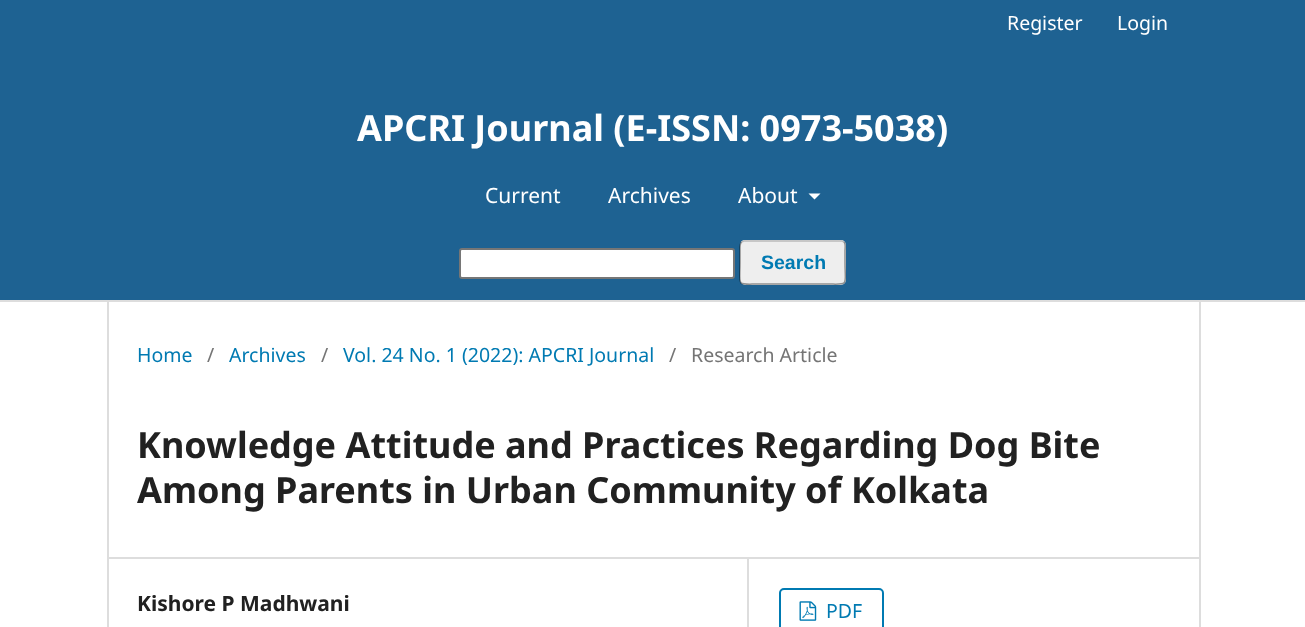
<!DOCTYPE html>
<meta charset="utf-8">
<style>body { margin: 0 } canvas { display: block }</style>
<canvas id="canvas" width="1305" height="627"></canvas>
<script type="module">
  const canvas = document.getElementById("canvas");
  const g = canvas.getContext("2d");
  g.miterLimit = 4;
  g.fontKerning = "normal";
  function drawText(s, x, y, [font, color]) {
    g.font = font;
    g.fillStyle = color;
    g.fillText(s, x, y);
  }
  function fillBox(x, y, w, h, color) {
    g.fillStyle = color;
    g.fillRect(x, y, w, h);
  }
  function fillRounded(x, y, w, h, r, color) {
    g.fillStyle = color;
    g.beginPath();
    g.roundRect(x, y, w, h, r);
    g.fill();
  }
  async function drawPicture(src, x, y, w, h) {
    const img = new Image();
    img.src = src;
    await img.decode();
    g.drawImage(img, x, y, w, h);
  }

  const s1 = ["19.5px Noto Sans", "#FFFFFF"];
  const s2 = ["bold 36px Noto Sans", "#FFFFFF"];
  const s3 = ["21px Noto Sans", "#FFFFFF"];
  const s4 = ["bold 19.5px Liberation Sans", "#007AB2"];
  const s5 = ["19.5px Noto Sans", "#007AB2"];
  const s6 = ["19.5px Noto Sans", "#757575"];
  const s7 = ["bold 36px Noto Sans", "#212121"];
  const s8 = ["bold 21px Noto Sans", "#212121"];

  fillBox(0, 0, 1305, 627, "#FFFFFF");
  fillBox(0, 0, 1305, 300, "#1E6292");
  fillBox(0, 300, 1305, 2, "#DDDDDD");
  drawText("Register", 1007, 30, s1);
  drawText("Login", 1117, 30, s1);
  drawText("APCRI Journal (E-ISSN: 0973-5038)", 357, 141, s2);
  drawText("Current", 485, 203, s3);
  drawText("Archives", 608, 203, s3);
  drawText("About", 738, 203, s3);
  g.beginPath();
  g.moveTo(808.5, 193.5);
  g.lineTo(820.5, 193.5);
  g.lineTo(814.5, 199.5);
  g.closePath();
  g.fill();
  g.beginPath();
  g.roundRect(460, 249, 274, 29, 2);
  g.fill();
  g.strokeStyle = "#767676";
  g.lineWidth = 2;
  g.stroke();
  fillRounded(740, 240, 106, 45, 5, "#EEEEEE");
  g.beginPath();
  g.moveTo(741.5, 242);
  g.lineTo(744, 241);
  g.lineTo(842, 241);
  g.lineTo(844, 242);
  g.strokeStyle = "#BBBBBB";
  g.lineWidth = 1.5;
  g.stroke();
  g.beginPath();
  g.moveTo(844, 242);
  g.bezierCurveTo(846, 244, 845, 248.5, 845, 250.5);
  g.lineTo(845, 262.5);
  g.bezierCurveTo(845, 287.5, 850, 284, 825, 284);
  g.lineTo(760, 284);
  g.bezierCurveTo(735.5, 284, 740, 287.5, 740, 262.5);
  g.lineTo(740, 250.5);
  g.bezierCurveTo(740, 248.5, 739.5, 244, 741.5, 242);
  g.strokeStyle = "rgba(0, 0, 0, 0.4)";
  g.stroke();
  drawText("Search", 761, 269, s4);
  fillBox(107, 557, 1092, 2, "#DDDDDD");
  fillBox(107, 302, 2, 325, "#DDDDDD");
  drawText("Home", 137, 362, s5);
  drawText("/", 207, 362, s6);
  drawText("Archives", 229, 362, s5);
  drawText("/", 321, 362, s6);
  drawText("Vol. 24 No. 1 (2022): APCRI Journal", 343, 362, s5);
  drawText("/", 669, 362, s6);
  drawText("Research Article", 691, 362, s6);
  drawText("Knowledge Attitude and Practices Regarding Dog Bite", 137, 458, s7);
  drawText("Among Parents in Urban Community of Kolkata", 137, 503, s7);
  fillBox(747, 558, 2, 69, "#DDDDDD");
  drawText("Kishore P Madhwani", 137, 611, s8);
  g.beginPath();
  g.roundRect(780, 589, 103, 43, 4);
  g.strokeStyle = "#007AB2";
  g.lineWidth = 2;
  g.stroke();
  await drawPicture("pic1.png", 799, 601, 18, 20);
  drawText("PDF", 826, 618, s5);
  fillBox(1199, 302, 2, 325, "#DDDDDD");
</script>
